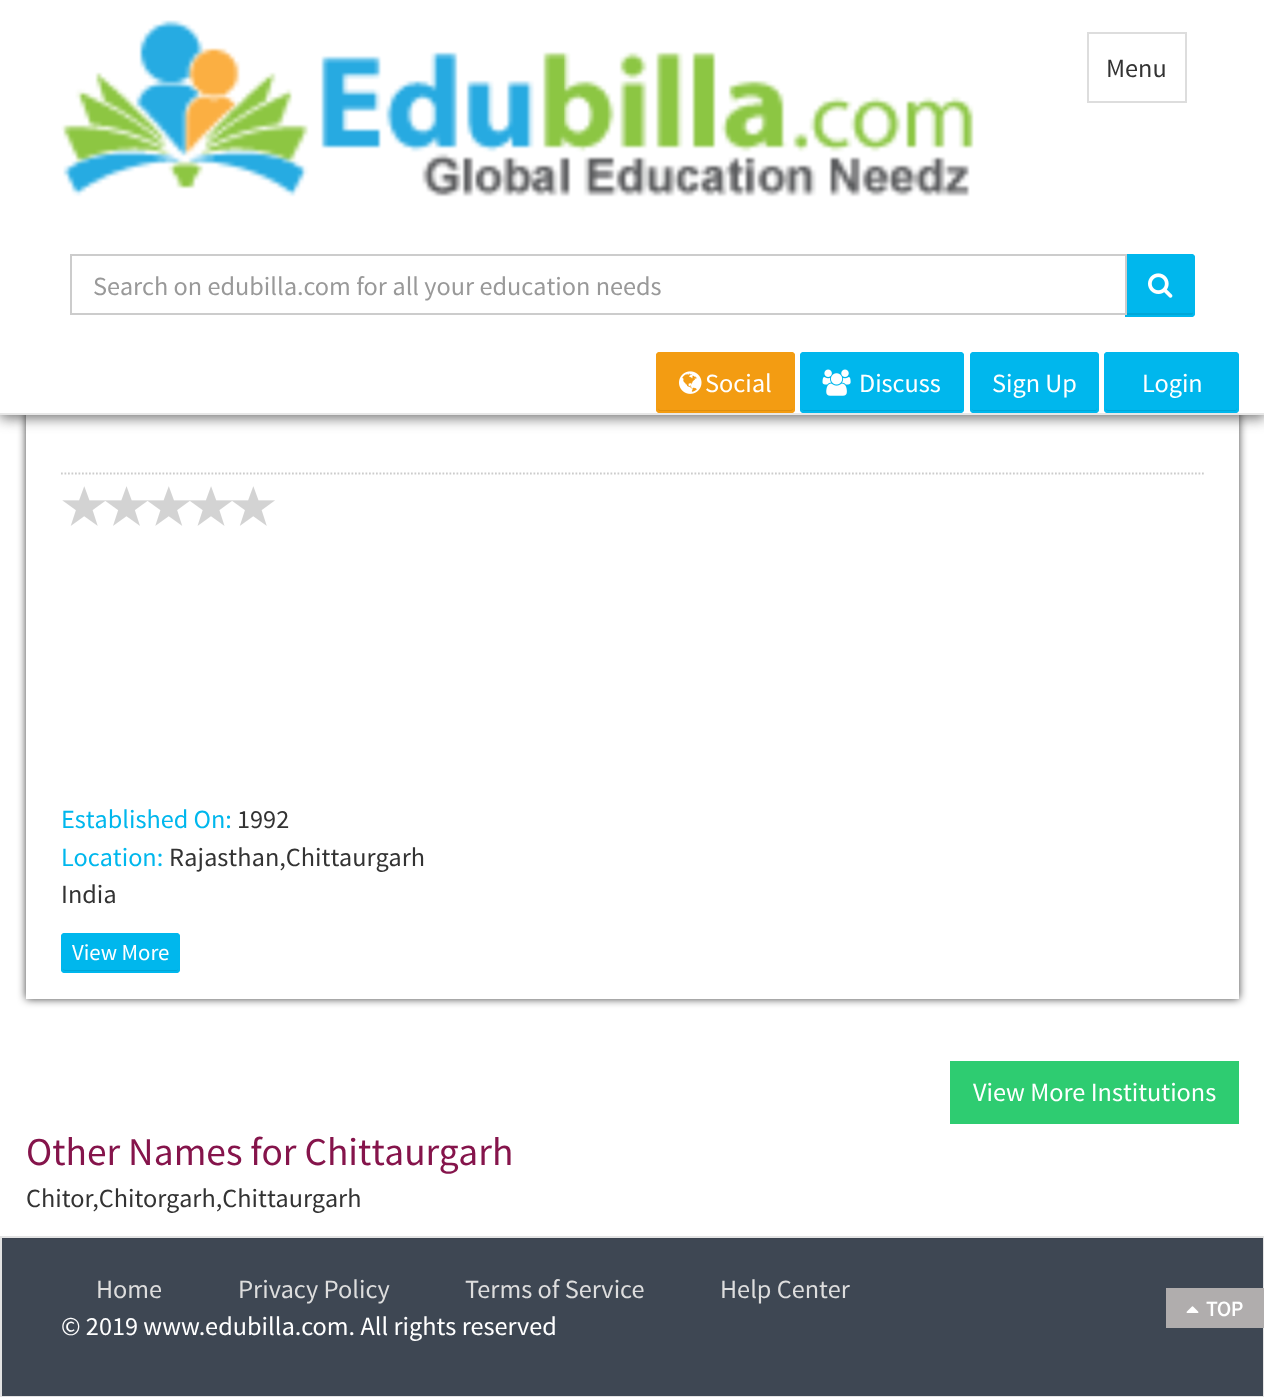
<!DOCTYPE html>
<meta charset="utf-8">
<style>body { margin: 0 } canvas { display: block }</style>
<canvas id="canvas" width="1264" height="1397"></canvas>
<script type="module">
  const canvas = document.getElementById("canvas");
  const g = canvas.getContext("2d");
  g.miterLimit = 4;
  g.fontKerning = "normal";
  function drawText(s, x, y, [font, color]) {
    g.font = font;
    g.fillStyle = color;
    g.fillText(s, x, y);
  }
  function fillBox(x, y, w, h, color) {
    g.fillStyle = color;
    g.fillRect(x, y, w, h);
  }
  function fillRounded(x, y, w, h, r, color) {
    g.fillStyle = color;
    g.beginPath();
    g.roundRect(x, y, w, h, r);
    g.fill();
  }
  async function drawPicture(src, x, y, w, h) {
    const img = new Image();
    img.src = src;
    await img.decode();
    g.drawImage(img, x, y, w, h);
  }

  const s1 = ["26.25px Source Sans Pro", "#333333"];
  const s2 = ["26.25px Source Sans Pro", "#999999"];
  const s3 = ["26.25px Source Sans Pro", "#FFFFFF"];
  const s4 = ["26.25px Source Sans Pro", "#00B7ED"];
  const s5 = ["22.75px Source Sans Pro", "#FFFFFF"];
  const s6 = ["39.4px Source Sans Pro", "#85144B"];
  const s7 = ["26.25px Source Sans Pro", "#DDDDDD"];
  const s8 = ["bold 21px Source Sans Pro", "#FFFFFF"];

  fillBox(0, 0, 1264, 1397, "#FFFFFF");
  g.fillStyle = "rgba(0, 0, 0, 0.75)";
  g.filter = "blur(4.5px)";
  g.beginPath();
  g.rect(26, 341, 1213, 658);
  g.fill();
  g.filter = "none";
  fillBox(26, 415, 1213, 584, "#FFFFFF");
  g.fillStyle = "rgba(50, 50, 50, 0.7)";
  g.filter = "blur(7px)";
  g.beginPath();
  g.rect(0, 4, 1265, 414);
  g.fill();
  g.filter = "none";
  fillBox(0, 0, 1264, 413, "#FFFFFF");
  fillBox(0, 413, 1264, 2, "#E7E7E7");
  await drawPicture("pic1.png", 61, 20, 913, 177);
  g.strokeStyle = "#DDDDDD";
  g.lineWidth = 2;
  g.strokeRect(1088, 33, 98, 69);
  drawText("Menu", 1106, 77, s1);
  g.fillStyle = "#00B7ED";
  g.beginPath();
  g.roundRect(1125, 254, 70, 63, [0, 4, 4, 0]);
  g.fill();
  g.fillStyle = "#00A7D8";
  g.beginPath();
  g.moveTo(1127, 313);
  g.lineTo(1127, 315);
  g.lineTo(1192, 315);
  g.bezierCurveTo(1193, 315, 1194, 314, 1194, 313);
  g.lineTo(1194, 312);
  g.lineTo(1192, 313);
  g.closePath();
  g.fill();
  g.beginPath();
  g.roundRect(1126, 255, 68, 61, [0, 3, 3, 0]);
  g.strokeStyle = "#00B7ED";
  g.stroke();
  g.strokeStyle = "#CCCCCC";
  g.strokeRect(71, 255, 1055, 59);
  drawText("Search on edubilla.com for all your education needs", 93, 295, s2);
  await drawPicture("pic2.png", 1148, 273, 25, 25);
  fillRounded(656, 352, 139, 61, 4, "#F39C12");
  g.fillStyle = "#DD8E10";
  g.beginPath();
  g.moveTo(658, 408);
  g.bezierCurveTo(658, 409, 658, 411, 660, 411);
  g.lineTo(791, 411);
  g.bezierCurveTo(793, 411, 793, 409, 793, 408);
  g.bezierCurveTo(793, 409, 792, 410, 791, 410);
  g.lineTo(660, 410);
  g.bezierCurveTo(659, 410, 658, 409, 658, 408);
  g.closePath();
  g.fill();
  g.beginPath();
  g.roundRect(657, 353, 137, 59, 3);
  g.strokeStyle = "#F39C12";
  g.stroke();
  await drawPicture("pic3.png", 679, 371, 23, 23);
  drawText("Social", 705, 392, s3);
  fillRounded(800, 352, 164, 61, 4, "#00B7ED");
  g.fillStyle = "#00A7D8";
  g.beginPath();
  g.moveTo(802, 408);
  g.lineTo(802, 409);
  g.bezierCurveTo(802, 410, 803, 411, 804, 411);
  g.lineTo(961, 411);
  g.bezierCurveTo(962, 411, 963, 410, 963, 409);
  g.lineTo(963, 356);
  g.bezierCurveTo(963, 355, 963, 355, 962, 354);
  g.lineTo(962, 408);
  g.bezierCurveTo(962, 409, 962, 410, 961, 410);
  g.lineTo(803, 410);
  g.bezierCurveTo(802, 410, 802, 409, 802, 408);
  g.closePath();
  g.fill();
  g.beginPath();
  g.roundRect(801, 353, 162, 59, 3);
  g.strokeStyle = "#00B7ED";
  g.stroke();
  await drawPicture("pic4.png", 822, 369, 29, 27);
  drawText("Discuss", 859, 392, s3);
  fillRounded(970, 352, 129, 61, 4, "#00B7ED");
  g.fillStyle = "#00A7D8";
  g.beginPath();
  g.moveTo(971, 408);
  g.lineTo(972, 410);
  g.lineTo(973, 411);
  g.lineTo(1096, 411);
  g.bezierCurveTo(1097, 410, 1097, 409, 1097, 408);
  g.lineTo(1096, 410);
  g.lineTo(973, 410);
  g.lineTo(971, 409);
  g.closePath();
  g.fill();
  g.beginPath();
  g.roundRect(971, 353, 127, 59, 3);
  g.stroke();
  drawText("Sign Up", 992, 392, s3);
  fillRounded(1104, 352, 135, 61, 4, "#00B7ED");
  g.fillStyle = "#00A7D8";
  g.beginPath();
  g.moveTo(1106, 408);
  g.bezierCurveTo(1106, 409, 1106, 411, 1108, 411);
  g.lineTo(1235, 411);
  g.bezierCurveTo(1237, 411, 1237, 409, 1237, 408);
  g.lineTo(1236, 410);
  g.lineTo(1108, 410);
  g.bezierCurveTo(1107, 410, 1106, 409, 1106, 408);
  g.closePath();
  g.fill();
  g.beginPath();
  g.roundRect(1105, 353, 133, 59, 3);
  g.stroke();
  drawText("Login", 1142, 392, s3);
  g.beginPath();
  g.moveTo(61, 473.5);
  g.lineTo(1204, 473.5);
  g.strokeStyle = "#CCCCCC";
  g.lineWidth = 1.8;
  g.setLineDash([1.75, 1.75]);
  g.stroke();
  await drawPicture("pic5.png", 62, 486, 213, 40);
  drawText("Established On:", 61, 828, s4);
  drawText("1992", 237, 828, s1);
  drawText("Location:", 61, 866, s4);
  drawText("Rajasthan,Chittaurgarh", 169, 866, s1);
  drawText("India", 61, 903, s1);
  fillRounded(61, 933, 119, 40, 4, "#00B7ED");
  g.fillStyle = "#00A7D8";
  g.beginPath();
  g.moveTo(63, 968);
  g.lineTo(63, 969);
  g.bezierCurveTo(63, 970, 64, 971, 65, 971);
  g.lineTo(177, 971);
  g.bezierCurveTo(178, 971, 179, 970, 179, 969);
  g.lineTo(179, 937);
  g.bezierCurveTo(179, 936, 179, 936, 178, 935);
  g.lineTo(178, 968);
  g.bezierCurveTo(178, 969, 178, 970, 177, 970);
  g.lineTo(65, 970);
  g.bezierCurveTo(64, 970, 63, 969, 63, 968);
  g.closePath();
  g.fill();
  g.beginPath();
  g.roundRect(62, 934, 117, 38, 3);
  g.strokeStyle = "#00B7ED";
  g.lineWidth = 2;
  g.setLineDash([]);
  g.stroke();
  drawText("View More", 72, 960, s5);
  fillBox(950, 1061, 289, 63, "#2ECC71");
  drawText("View More Institutions", 973, 1101, s3);
  drawText("Other Names for Chittaurgarh", 26, 1165, s6);
  drawText("Chitor,Chitorgarh,Chittaurgarh", 26, 1207, s1);
  fillBox(2, 1239, 1261, 157, "#3E4753");
  fillBox(2, 1238, 1262, 1, "#3B434F");
  g.strokeStyle = "#E3E3E3";
  g.strokeRect(1, 1237, 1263, 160);
  drawText("Home", 96, 1298, s7);
  drawText("Privacy Policy", 238, 1298, s7);
  drawText("Terms of Service", 465, 1298, s7);
  drawText("Help Center", 720, 1298, s7);
  drawText("© 2019 www.edubilla.com. All rights reserved", 61, 1335, s3);
  fillBox(1166, 1288, 98, 40, "#B0ADAD");
  await drawPicture("pic6.png", 1186, 1306, 13, 7);
  drawText("TOP", 1206, 1316, s8);
</script>
